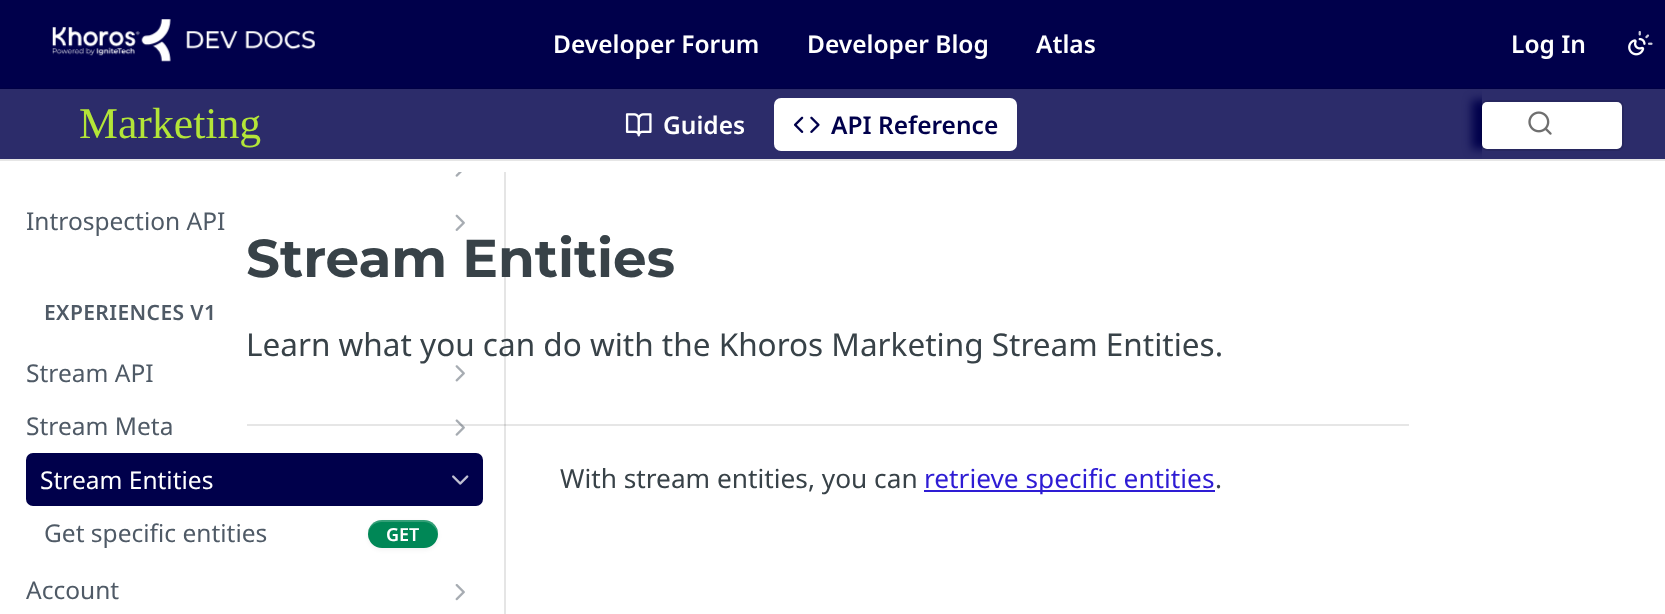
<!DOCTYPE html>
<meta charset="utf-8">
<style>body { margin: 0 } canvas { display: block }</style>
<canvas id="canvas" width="1665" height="614"></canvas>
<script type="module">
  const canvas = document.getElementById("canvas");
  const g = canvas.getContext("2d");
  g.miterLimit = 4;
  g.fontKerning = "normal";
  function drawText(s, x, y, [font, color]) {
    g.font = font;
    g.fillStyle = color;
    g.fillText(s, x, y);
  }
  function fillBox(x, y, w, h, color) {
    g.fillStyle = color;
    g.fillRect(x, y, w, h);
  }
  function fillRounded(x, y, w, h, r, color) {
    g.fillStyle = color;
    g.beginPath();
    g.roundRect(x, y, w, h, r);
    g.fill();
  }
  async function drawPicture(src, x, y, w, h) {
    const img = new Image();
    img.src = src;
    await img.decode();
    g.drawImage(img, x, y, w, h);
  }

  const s1 = ["600 24.5px Noto Sans", "#FFFFFF"];
  const s2 = ["43.75px Liberation Serif", "#B3E538"];
  const s3 = ["600 24.5px Noto Sans", "#00004B"];
  const s4 = ["24.5px Noto Sans", "#4F5A66"];
  const s5 = ["600 21px Noto Sans", "#4F5A66"];
  const s6 = ["24.5px Noto Sans", "#FFFFFF"];
  const s7 = ["600 18px Noto Sans", "#FFFFFF"];
  const s8 = ["bold 53.25px Montserrat", "#384248"];
  const s9 = ["31.5px Noto Sans", "#384248"];
  const s10 = ["26.25px Noto Sans", "#384248"];
  const s11 = ["26.25px Noto Sans", "#2E1CD4"];

  fillBox(0, 0, 1665, 614, "#FFFFFF");
  fillBox(0, 159, 1665, 2, "#E6E6E6");
  fillBox(0, 0, 1665, 88, "#00004B");
  fillBox(0, 88, 1665, 1, "#000044");
  await drawPicture("pic1.png", 52, 19, 263, 43);
  drawText("Developer Forum", 553, 53, s1);
  drawText("Developer Blog", 807, 53, s1);
  drawText("Atlas", 1036, 53, s1);
  drawText("Log In", 1511, 53, s1);
  await drawPicture("pic2.png", 1628, 31, 25, 25);
  fillBox(0, 89, 1665, 70, "#2C2C6A");
  drawText("Marketing", 79, 138, s2);
  await drawPicture("pic3.png", 625, 113, 27, 24);
  drawText("Guides", 663, 134, s1);
  fillRounded(774, 98, 243, 53, 7, "#FFFFFF");
  await drawPicture("pic4.png", 793, 116, 27, 17);
  drawText("API Reference", 831, 134, s3);
  g.save();
  g.beginPath();
  g.moveTo(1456, 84);
  g.lineTo(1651, 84);
  g.lineTo(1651, 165);
  g.lineTo(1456, 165);
  g.closePath();
  g.moveTo(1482, 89);
  g.lineTo(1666, 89);
  g.lineTo(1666, 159);
  g.lineTo(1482, 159);
  g.closePath();
  g.clip("evenodd");
  g.filter = "blur(5px)";
  g.beginPath();
  g.rect(1472, 100, 163, 49);
  g.fill();
  g.filter = "none";
  g.restore();
  g.beginPath();
  g.roundRect(1482, 101, 141, 49, 6);
  g.strokeStyle = "rgba(0, 0, 0, 0.1)";
  g.lineWidth = 2;
  g.stroke();
  fillRounded(1482, 102, 140, 47, 5, "#FFFFFF");
  await drawPicture("pic5.png", 1528, 111, 24, 24);
  fillBox(247, 424, 1162, 2, "#E6E6E6");
  g.fillStyle = "rgba(0, 0, 0, 0.1)";
  g.beginPath();
  g.moveTo(2, 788);
  g.lineTo(506, 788);
  g.lineTo(506, 172);
  g.lineTo(504, 172);
  g.lineTo(504, 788);
  g.closePath();
  g.fill();
  await drawPicture("pic6.png", 455, 172, 7, 5);
  drawText("Introspection API", 26, 230, s4);
  await drawPicture("pic7.png", 455, 214, 10, 17);
  g.letterSpacing = "0.4px";
  drawText("EXPERIENCES V1", 44, 320, s5);
  g.letterSpacing = "0px";
  drawText("Stream API", 26, 382, s4);
  await drawPicture("pic8.png", 455, 365, 10, 17);
  drawText("Stream Meta", 26, 435, s4);
  await drawPicture("pic9.png", 455, 419, 10, 17);
  fillRounded(26, 453, 457, 53, 7, "#00004B");
  drawText("Stream Entities", 40, 489, s6);
  await drawPicture("pic10.png", 452, 475, 17, 10);
  drawText("Get specific entities", 44, 542, s4);
  g.fillStyle = "rgba(0, 0, 0, 0.05)";
  g.filter = "blur(2px)";
  g.beginPath();
  g.roundRect(368, 522, 70, 28, 14);
  g.fill();
  g.filter = "none";
  fillRounded(368, 520, 70, 28, 14, "#008756");
  g.fillStyle = "rgba(255, 255, 255, 0.2)";
  g.beginPath();
  g.moveTo(382, 522);
  g.lineTo(424, 522);
  g.bezierCurveTo(431, 522, 437, 528, 438, 535);
  g.bezierCurveTo(438, 528, 434, 522, 427, 520);
  g.lineTo(379, 520);
  g.bezierCurveTo(372, 522, 368, 528, 368, 535);
  g.bezierCurveTo(369, 527, 374, 522, 382, 522);
  g.closePath();
  g.fill();
  drawText("GET", 386, 541, s7);
  drawText("Account", 26, 599, s4);
  await drawPicture("pic11.png", 455, 584, 10, 17);
  drawText("Stream Entities", 246, 277, s8);
  drawText("Learn what you can do with the Khoros Marketing Stream Entities.", 246, 356, s9);
  drawText("With stream entities, you can", 560, 488, s10);
  fillBox(924, 490, 291, 2, "#2E1CD4");
  drawText("retrieve specific entities", 924, 488, s11);
  drawText(".", 1215, 488, s10);
</script>
